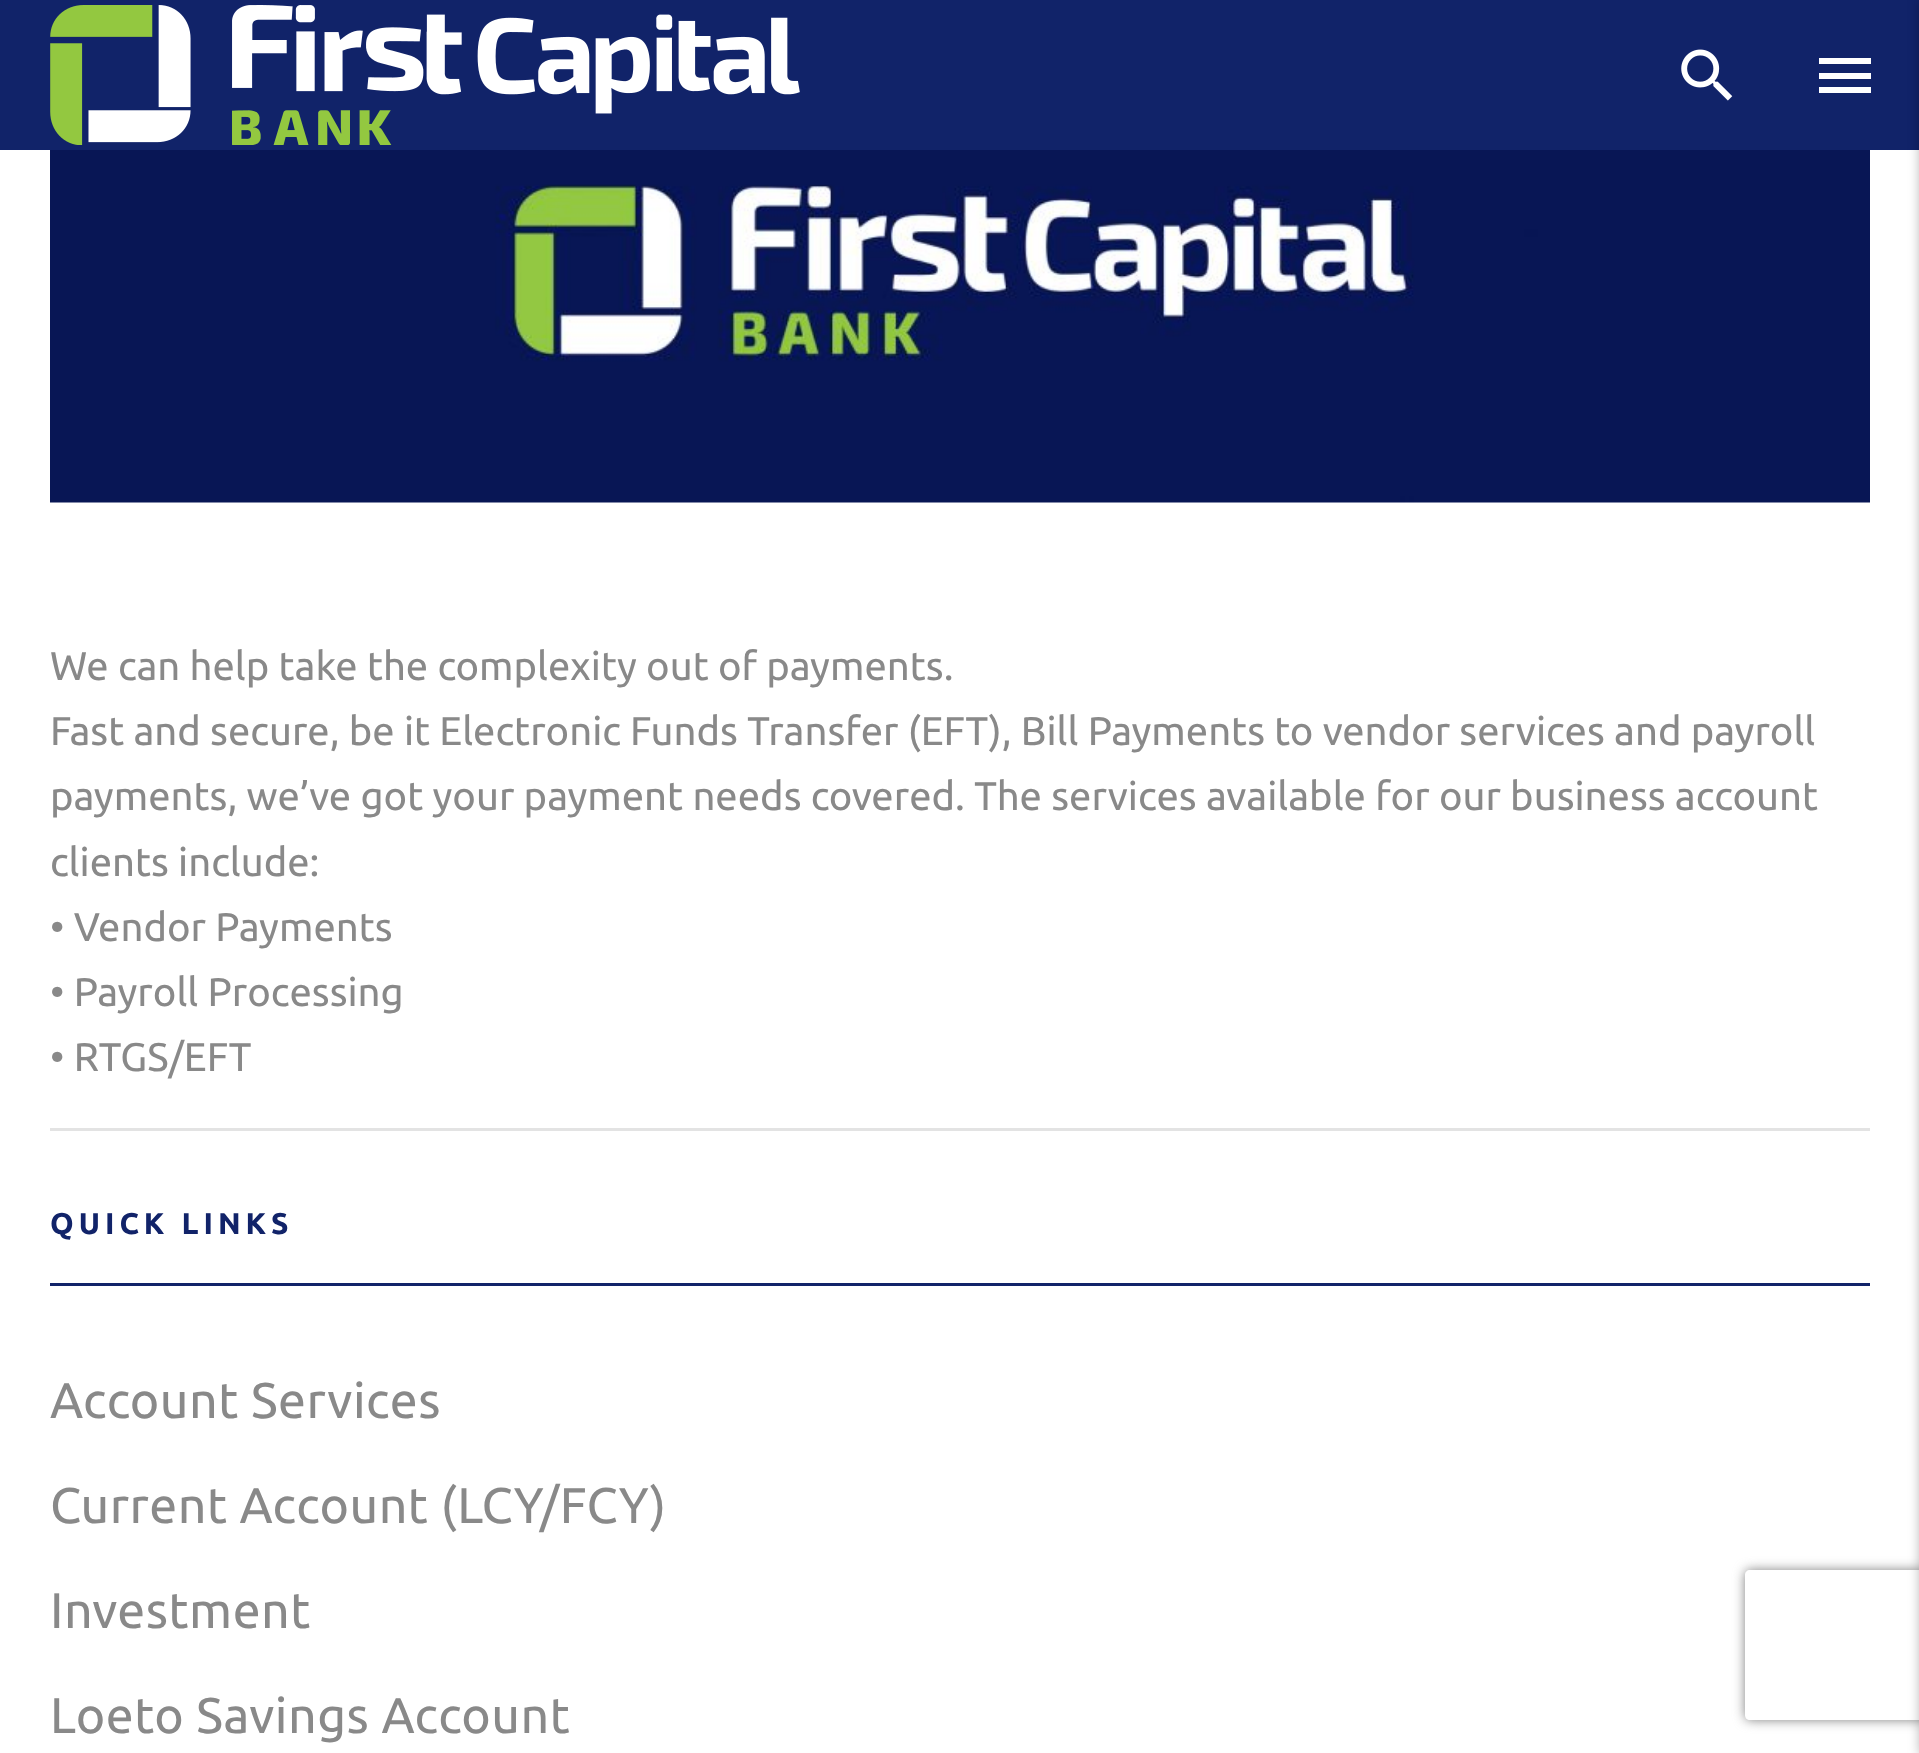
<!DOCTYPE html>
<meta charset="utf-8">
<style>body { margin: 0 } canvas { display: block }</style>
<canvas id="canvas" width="1919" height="1753"></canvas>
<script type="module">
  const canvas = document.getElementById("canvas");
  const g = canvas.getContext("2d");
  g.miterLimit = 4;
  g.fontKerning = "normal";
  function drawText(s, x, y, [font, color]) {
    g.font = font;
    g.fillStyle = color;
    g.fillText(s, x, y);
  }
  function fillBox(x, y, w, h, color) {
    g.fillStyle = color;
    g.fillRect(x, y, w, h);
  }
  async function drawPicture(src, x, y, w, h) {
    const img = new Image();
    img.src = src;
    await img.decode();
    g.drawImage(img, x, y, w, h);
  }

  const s1 = ["40px Ubuntu", "#898989"];
  const s2 = ["bold 30px Ubuntu", "#112369"];
  const s3 = ["50px Ubuntu", "#898989"];

  fillBox(0, 0, 1919, 1753, "#FFFFFF");
  fillBox(0, 0, 1919, 150, "#112369");
  await drawPicture("pic1.png", 50, 5, 750, 140);
  await drawPicture("pic2.png", 1681, 49, 52, 52);
  g.fillStyle = "#FFFFFF";
  g.beginPath();
  g.moveTo(1819, 58);
  g.lineTo(1871, 58);
  g.lineTo(1871, 64);
  g.lineTo(1819, 64);
  g.closePath();
  g.moveTo(1819, 79);
  g.lineTo(1819, 73);
  g.lineTo(1871, 73);
  g.lineTo(1871, 79);
  g.closePath();
  g.moveTo(1819, 93);
  g.lineTo(1819, 87);
  g.lineTo(1871, 87);
  g.lineTo(1871, 93);
  g.closePath();
  g.fill();
  await drawPicture("pic3.png", 50, 150, 1820, 353);
  drawText("We can help take the complexity out of payments.", 50, 680, s1);
  drawText("Fast and secure, be it Electronic Funds Transfer (EFT), Bill Payments to vendor services and payroll", 50, 745, s1);
  drawText("payments, we’ve got your payment needs covered. The services available for our business account", 50, 810, s1);
  drawText("clients include:", 50, 876, s1);
  drawText("• Vendor Payments", 50, 941, s1);
  drawText("• Payroll Processing", 50, 1006, s1);
  drawText("• RTGS/EFT", 50, 1071, s1);
  fillBox(50, 1128, 1820, 3, "#E3E3E3");
  fillBox(50, 1283, 1820, 3, "#112369");
  g.letterSpacing = "5px";
  drawText("QUICK LINKS", 50, 1234, s2);
  g.letterSpacing = "0.5px";
  drawText("Account Services", 50, 1418, s3);
  drawText("Current Account (LCY/FCY)", 50, 1523, s3);
  drawText("Investment", 50, 1628, s3);
  drawText("Loeto Savings Account", 50, 1733, s3);
  g.fillStyle = "rgba(0, 0, 0, 0.3)";
  g.filter = "blur(6px)";
  g.beginPath();
  g.rect(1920, 0, 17, 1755);
  g.fill();
  g.filter = "none";
  g.save();
  g.beginPath();
  g.moveTo(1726, 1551);
  g.lineTo(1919, 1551);
  g.lineTo(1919, 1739);
  g.lineTo(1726, 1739);
  g.closePath();
  g.moveTo(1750, 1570);
  g.lineTo(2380, 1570);
  g.bezierCurveTo(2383, 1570, 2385, 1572, 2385, 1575);
  g.lineTo(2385, 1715);
  g.bezierCurveTo(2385, 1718, 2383, 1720, 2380, 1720);
  g.lineTo(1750, 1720);
  g.bezierCurveTo(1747, 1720, 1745, 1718, 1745, 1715);
  g.lineTo(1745, 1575);
  g.bezierCurveTo(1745, 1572, 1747, 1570, 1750, 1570);
  g.closePath();
  g.clip("evenodd");
  g.fillStyle = "#808080";
  g.filter = "blur(6px)";
  g.beginPath();
  g.roundRect(1745, 1570, 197, 150, 5);
  g.fill();
  g.filter = "none";
  g.restore();
</script>
